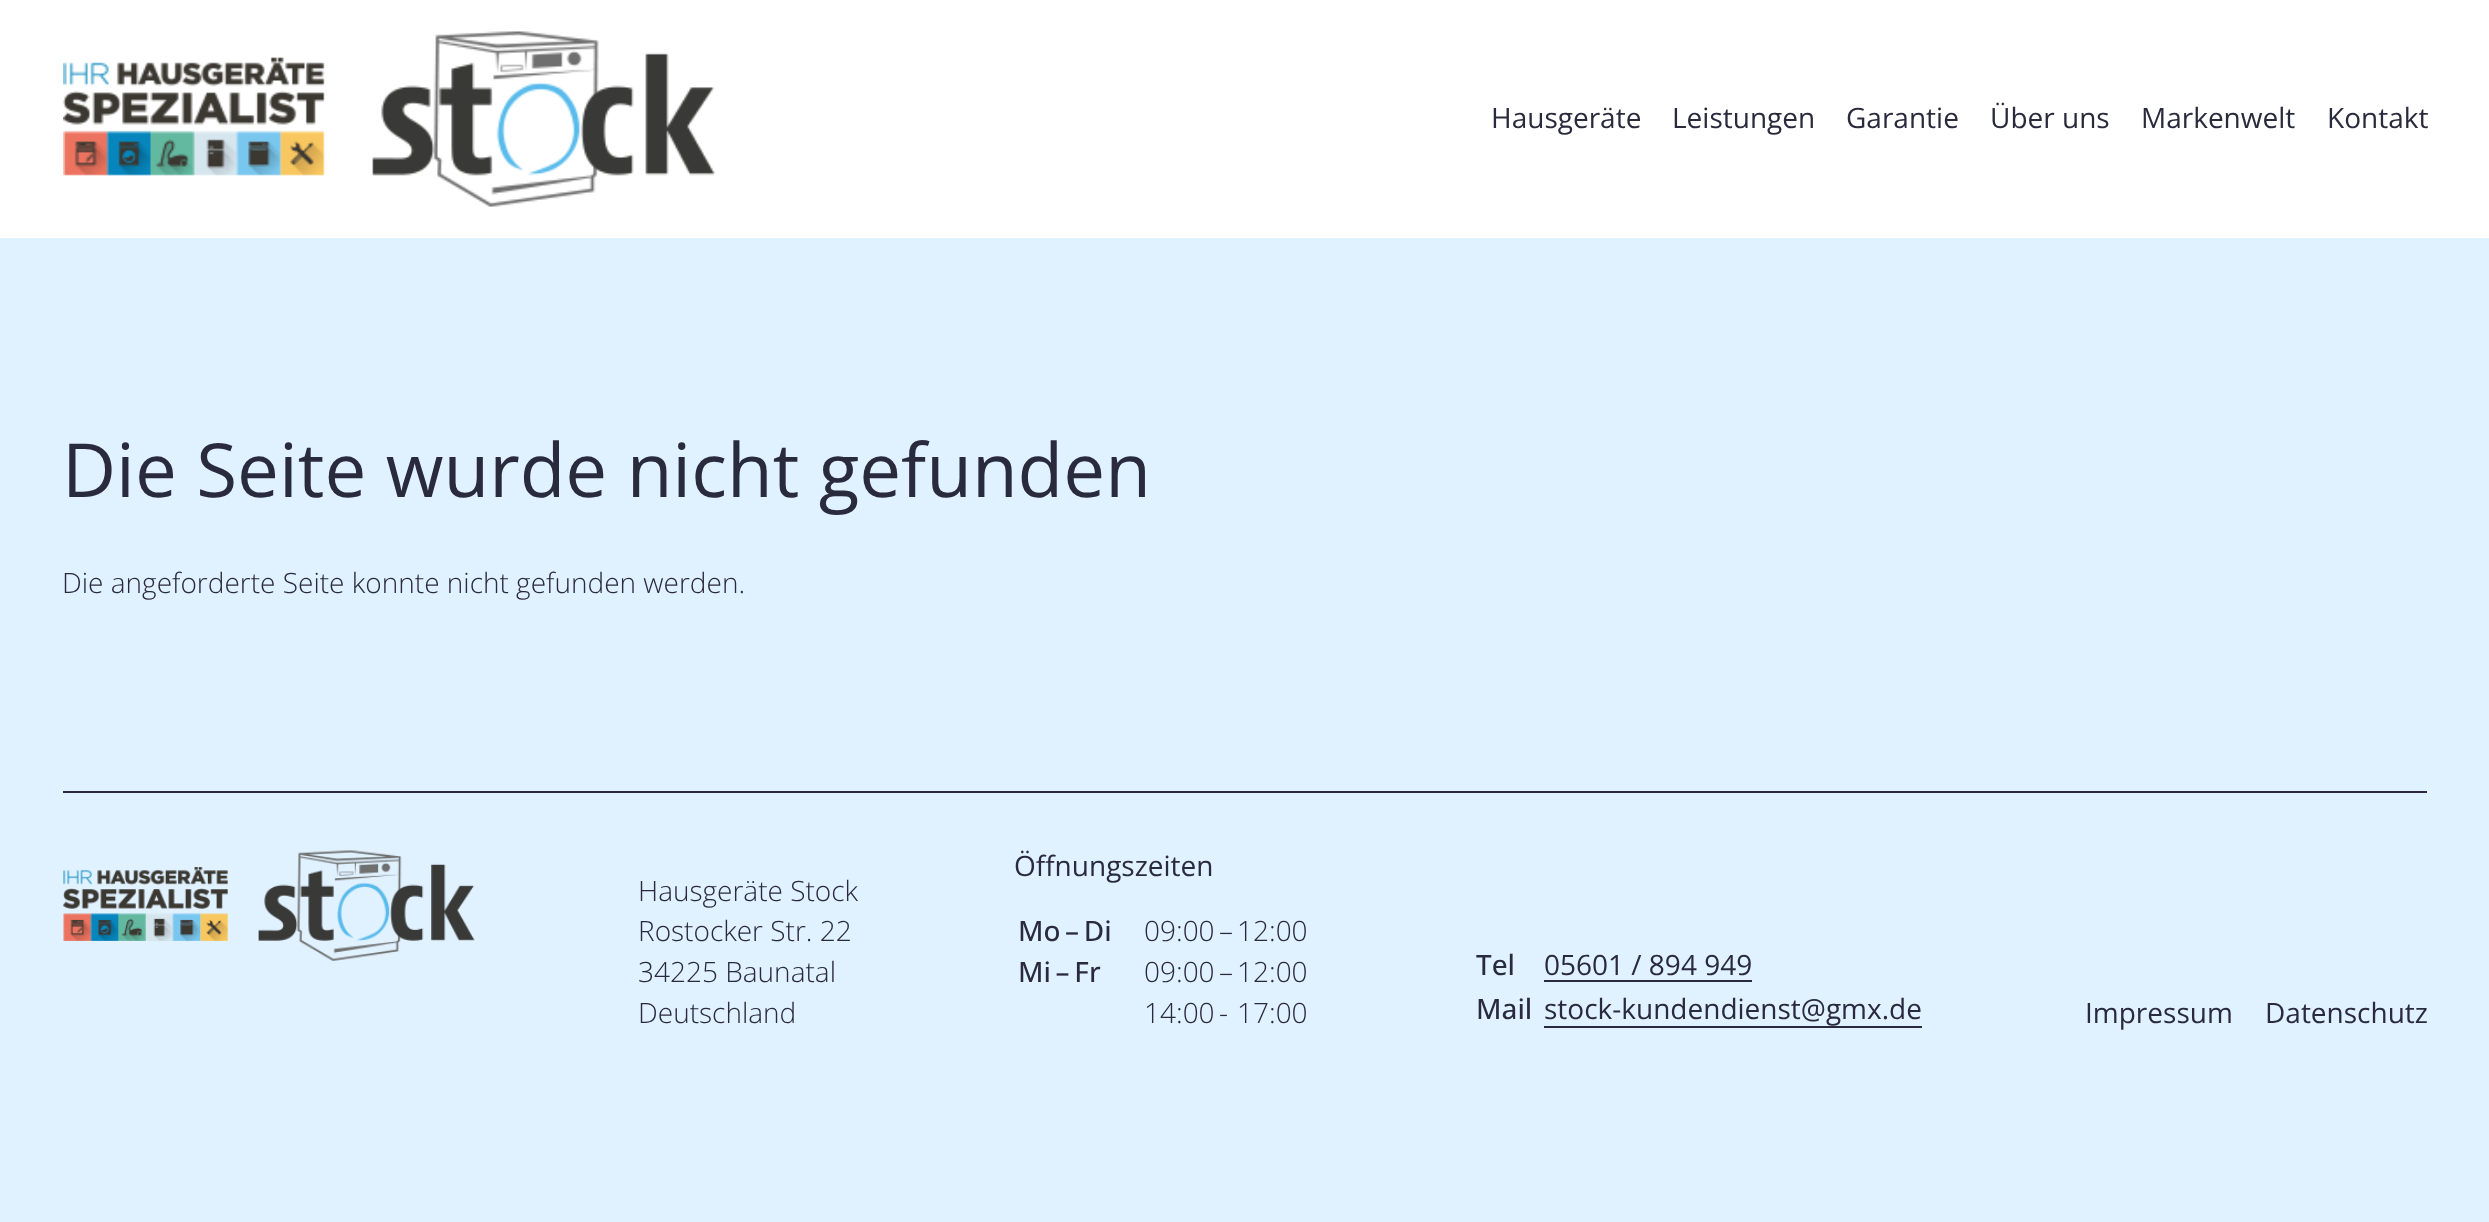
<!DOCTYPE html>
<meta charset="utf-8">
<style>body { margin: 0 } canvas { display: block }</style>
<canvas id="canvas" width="2489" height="1222"></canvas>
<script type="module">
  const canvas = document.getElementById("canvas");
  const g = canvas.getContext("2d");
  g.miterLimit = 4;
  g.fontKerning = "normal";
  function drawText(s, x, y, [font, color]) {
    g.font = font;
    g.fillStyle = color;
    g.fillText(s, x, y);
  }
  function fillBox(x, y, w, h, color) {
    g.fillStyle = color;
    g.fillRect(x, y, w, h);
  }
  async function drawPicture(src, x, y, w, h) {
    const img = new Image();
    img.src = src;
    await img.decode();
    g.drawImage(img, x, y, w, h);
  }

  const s1 = ["28px Open Sans", "#2A2A3D"];
  const s2 = ["74.6px Open Sans", "#2A2A3D"];
  const s3 = ["300 28px Open Sans", "#2A2A3D"];
  const s4 = ["500 28px Open Sans", "#2A2A3D"];

  fillBox(0, 0, 2489, 1222, "#E0F1FF");
  fillBox(0, 0, 2489, 238, "#FFFFFF");
  await drawPicture("pic1.png", 63, 31, 652, 176);
  drawText("Hausgeräte", 1491, 128, s1);
  drawText("Leistungen", 1672, 128, s1);
  drawText("Garantie", 1846, 128, s1);
  drawText("Über uns", 1990, 128, s1);
  drawText("Markenwelt", 2141, 128, s1);
  drawText("Kontakt", 2327, 128, s1);
  drawText("Die Seite wurde nicht gefunden", 62, 497, s2);
  drawText("Die angeforderte Seite konnte nicht gefunden werden.", 62, 593, s3);
  fillBox(63, 791, 2364, 2, "#2A2A3D");
  await drawPicture("pic2.png", 63, 850, 412, 111);
  drawText("Hausgeräte Stock", 638, 901, s3);
  drawText("Rostocker Str. 22", 638, 941, s3);
  drawText("34225 Baunatal", 638, 982, s3);
  drawText("Deutschland", 638, 1023, s3);
  drawText("Öffnungszeiten", 1014, 876, s1);
  drawText("Mo – Di", 1018, 941, s4);
  drawText("09:00", 1144, 941, s3);
  drawText("–", 1219, 941, s3);
  drawText("12:00", 1237, 941, s3);
  drawText("Mi – Fr", 1018, 982, s4);
  drawText("09:00", 1144, 982, s3);
  drawText("–", 1219, 982, s3);
  drawText("12:00", 1237, 982, s3);
  drawText("14:00", 1144, 1023, s3);
  drawText("-", 1219, 1023, s3);
  drawText("17:00", 1237, 1023, s3);
  drawText("Tel", 1476, 975, s4);
  drawText("05601 / 894 949", 1544, 975, s1);
  fillBox(1544, 980, 208, 2, "#2A2A3D");
  drawText("Mail", 1476, 1019, s4);
  drawText("stock-kundendienst@gmx.de", 1544, 1019, s1);
  fillBox(1544, 1026, 378, 2, "#2A2A3D");
  drawText("Impressum", 2085, 1023, s1);
  drawText("Datenschutz", 2265, 1023, s1);
</script>
